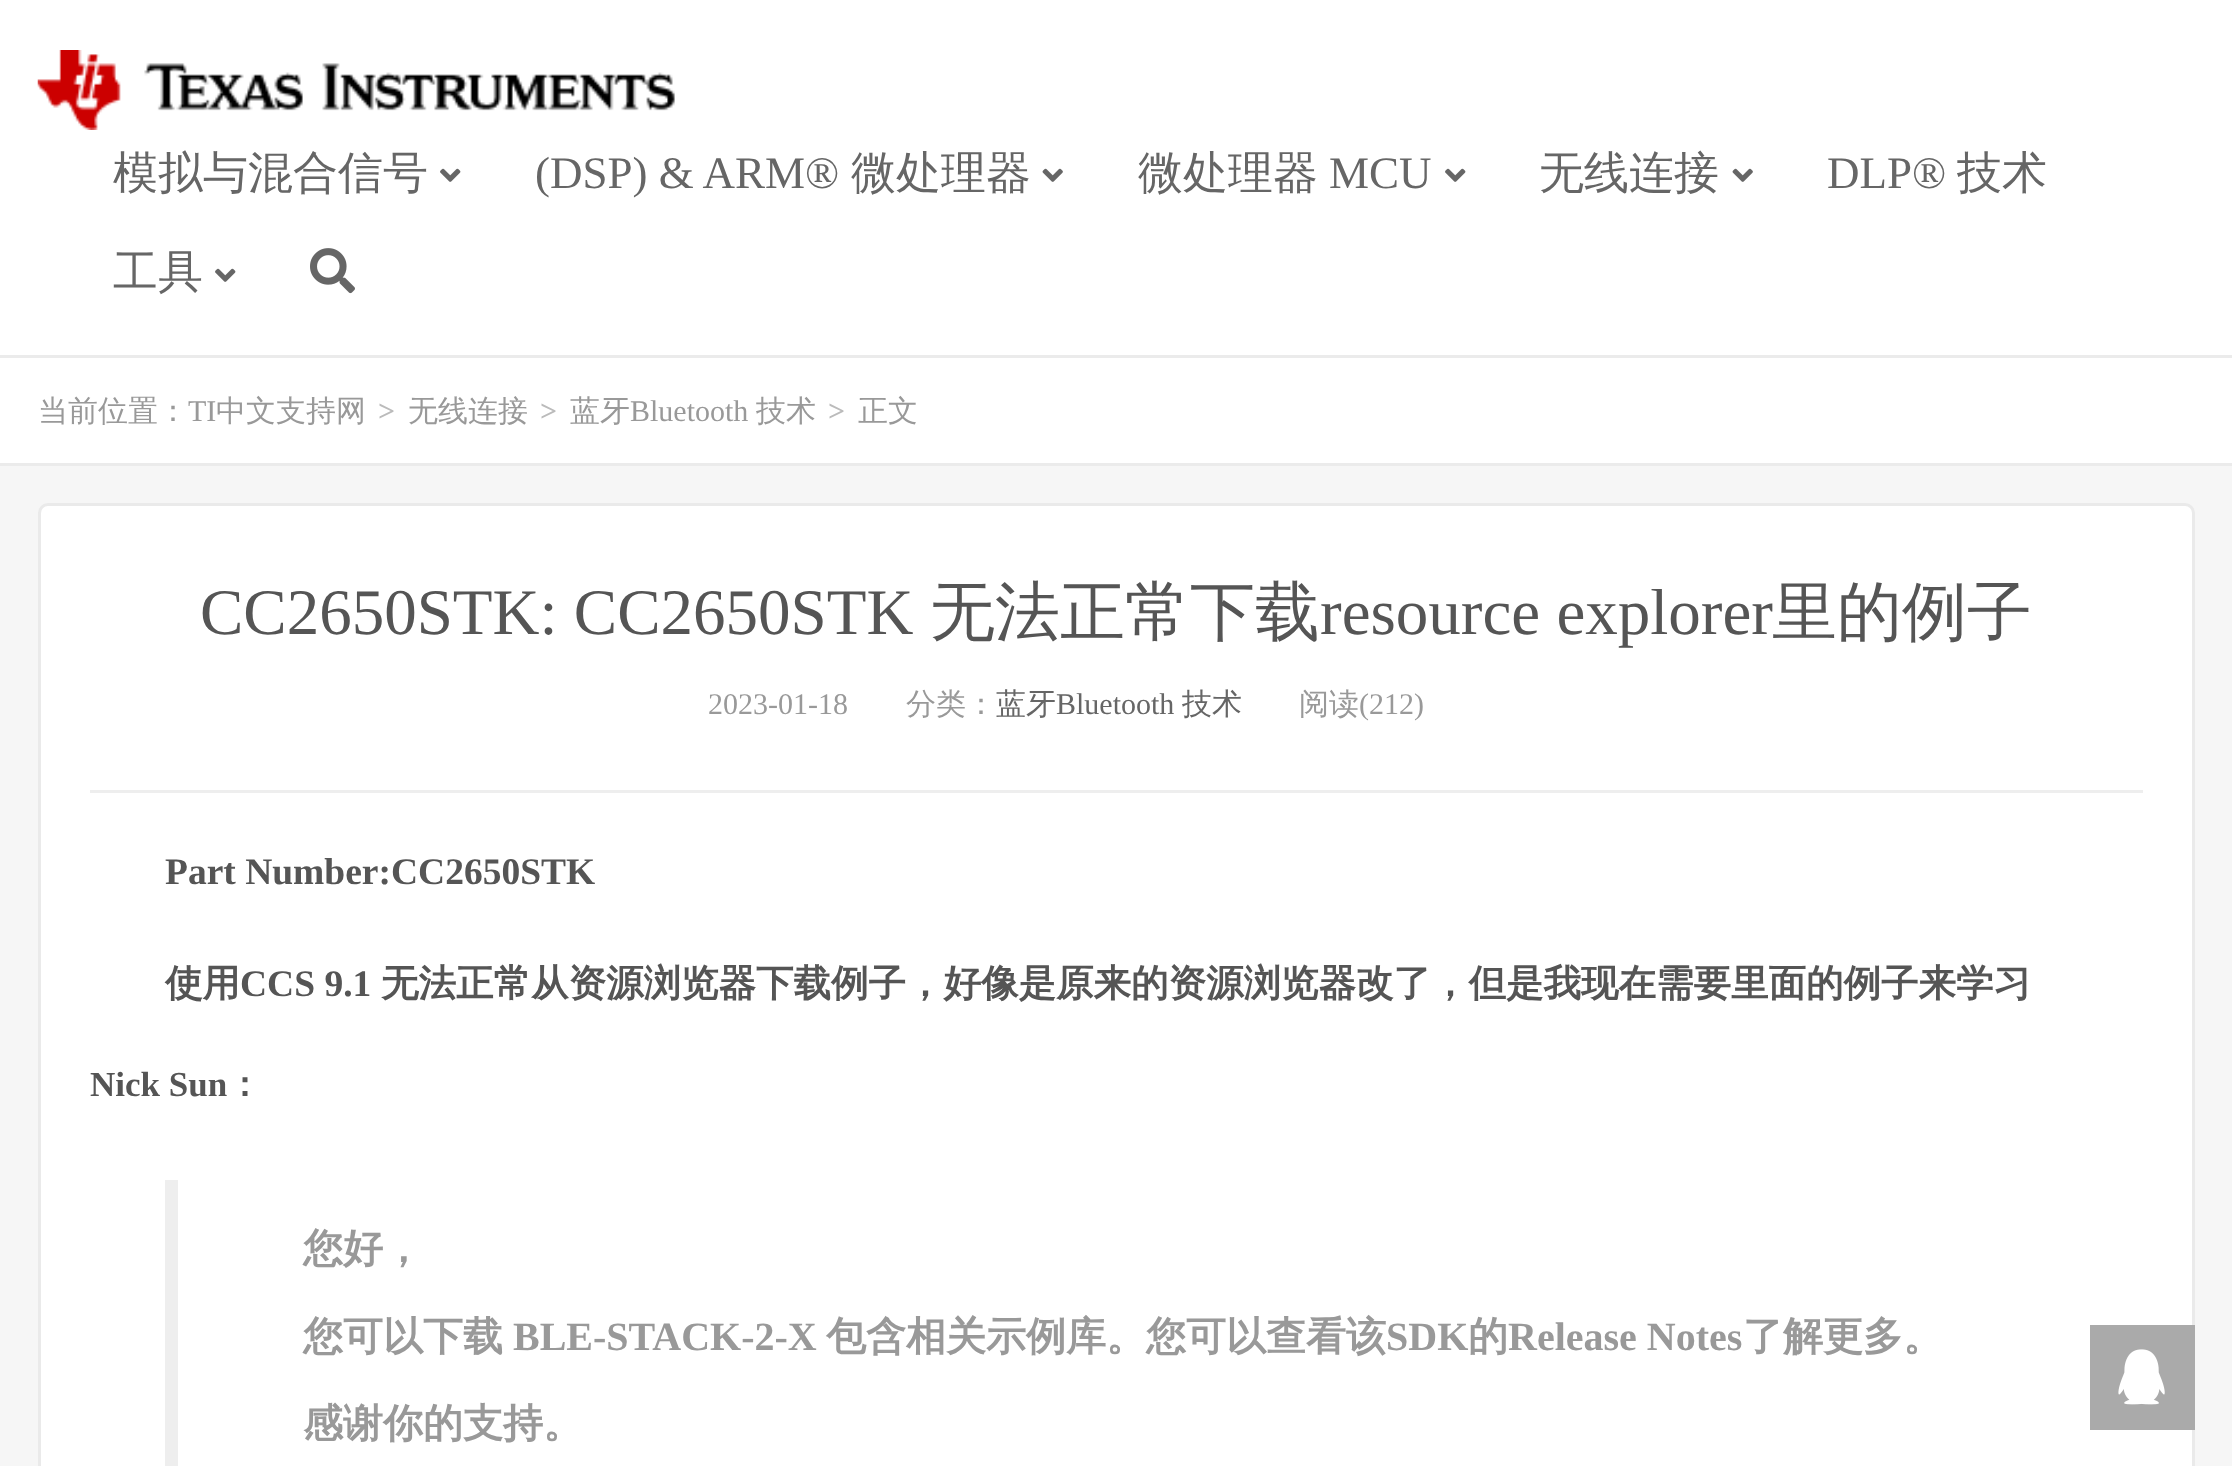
<!DOCTYPE html>
<meta charset="utf-8">
<style>body { margin: 0 } canvas { display: block }</style>
<canvas id="canvas" width="2232" height="1466"></canvas>
<script type="module">
  const canvas = document.getElementById("canvas");
  const g = canvas.getContext("2d");
  g.miterLimit = 4;
  g.fontKerning = "normal";
  function drawText(s, x, y, [font, color]) {
    g.font = font;
    g.fillStyle = color;
    g.fillText(s, x, y);
  }
  function fillBox(x, y, w, h, color) {
    g.fillStyle = color;
    g.fillRect(x, y, w, h);
  }
  async function drawPicture(src, x, y, w, h) {
    const img = new Image();
    img.src = src;
    await img.decode();
    g.drawImage(img, x, y, w, h);
  }

  const s1 = ["500 45px WenQuanYi Zen Hei", "#666666"];
  const s2 = ["45px Liberation Serif", "#666666"];
  const s3 = ["500 30px WenQuanYi Zen Hei", "#999999"];
  const s4 = ["30px Liberation Serif", "#999999"];
  const s5 = ["bold 30px Liberation Serif", "#BBBBBB"];
  const s6 = ["65px Liberation Serif", "#555555"];
  const s7 = ["500 65px WenQuanYi Zen Hei", "#555555"];
  const s8 = ["500 30px WenQuanYi Zen Hei", "#666666"];
  const s9 = ["30px Liberation Serif", "#666666"];
  const s10 = ["bold 37.5px Liberation Serif", "#555555"];
  const s11 = ["bold 37.5px WenQuanYi Zen Hei", "#555555"];
  const s12 = ["bold 35px Liberation Serif", "#555555"];
  const s13 = ["bold 35px WenQuanYi Zen Hei", "#555555"];
  const s14 = ["bold 40px WenQuanYi Zen Hei", "#999999"];
  const s15 = ["bold 40px Liberation Serif", "#999999"];

  fillBox(0, 0, 2232, 1466, "#F6F6F6");
  fillBox(0, 0, 2232, 355, "#FFFFFF");
  fillBox(0, 355, 2232, 3, "#EBEBEB");
  await drawPicture("pic1.png", 37, 50, 638, 80);
  drawText("模拟与混合信号", 113, 188, s1);
  await drawPicture("pic2.png", 440, 168, 21, 14);
  drawText("(DSP) & ARM®", 535, 188, s2);
  drawText("微处理器", 851, 188, s1);
  await drawPicture("pic3.png", 1042, 168, 21, 14);
  drawText("微处理器", 1138, 188, s1);
  drawText("MCU", 1329, 188, s2);
  await drawPicture("pic2.png", 1445, 168, 21, 14);
  drawText("无线连接", 1539, 188, s1);
  await drawPicture("pic3.png", 1732, 168, 21, 14);
  drawText("DLP®", 1827, 188, s2);
  drawText("技术", 1957, 188, s1);
  drawText("工具", 113, 287, s1);
  await drawPicture("pic2.png", 215, 268, 21, 14);
  await drawPicture("pic4.png", 310, 248, 45, 46);
  fillBox(0, 358, 2232, 105, "#FFFFFF");
  fillBox(0, 463, 2232, 3, "#EBEBEB");
  drawText("当前位置：", 38, 421, s3);
  drawText("TI", 188, 421, s4);
  drawText("中文支持网", 216, 421, s3);
  drawText(">", 378, 421, s5);
  drawText("无线连接", 408, 421, s3);
  drawText(">", 540, 421, s5);
  drawText("蓝牙", 570, 421, s3);
  drawText("Bluetooth", 630, 421, s4);
  drawText("技术", 756, 421, s3);
  drawText(">", 828, 421, s5);
  drawText("正文", 858, 421, s3);
  g.fillStyle = "#FFFFFF";
  g.beginPath();
  g.roundRect(39.5, 504.5, 2154, 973, 8.5);
  g.fill();
  g.strokeStyle = "#EAEAEA";
  g.lineWidth = 3;
  g.stroke();
  fillBox(90, 790, 2053, 3, "#EEEEEE");
  drawText("CC2650STK: CC2650STK", 200, 634, s6);
  drawText("无法正常下载", 930, 634, s7);
  drawText("resource explorer", 1320, 634, s6);
  drawText("里的例子", 1772, 634, s7);
  drawText("2023-01-18", 708, 714, s4);
  drawText("分类：", 906, 714, s3);
  drawText("蓝牙", 996, 714, s8);
  drawText("Bluetooth", 1056, 714, s9);
  drawText("技术", 1182, 714, s8);
  drawText("阅读", 1299, 714, s3);
  drawText("(212)", 1359, 714, s4);
  drawText("Part Number:CC2650STK", 165, 884, s10);
  drawText("使用", 165, 996, s11);
  drawText("CCS 9.1", 240, 996, s10);
  drawText("无法正常从资源浏览器下载例子，好像是原来的资源浏览器改了，但是我现在需要里面的例子来学习", 381, 996, s11);
  drawText("Nick Sun", 90, 1096, s12);
  drawText("：", 227, 1096, s13);
  fillBox(165, 1180, 13, 286, "#EEEEEE");
  drawText("您好，", 303, 1262, s14);
  drawText("您可以下载", 303, 1350, s14);
  drawText("BLE-STACK-2-X", 513, 1350, s15);
  drawText("包含相关示例库。您可以查看该", 826, 1350, s14);
  drawText("SDK", 1386, 1350, s15);
  drawText("的", 1468, 1350, s14);
  drawText("Release Notes", 1508, 1350, s15);
  drawText("了解更多。", 1743, 1350, s14);
  drawText("感谢你的支持。", 303, 1437, s14);
  fillBox(2090, 1325, 105, 105, "#AAAAAA");
  await drawPicture("pic5.png", 2118, 1349, 47, 56);
</script>
